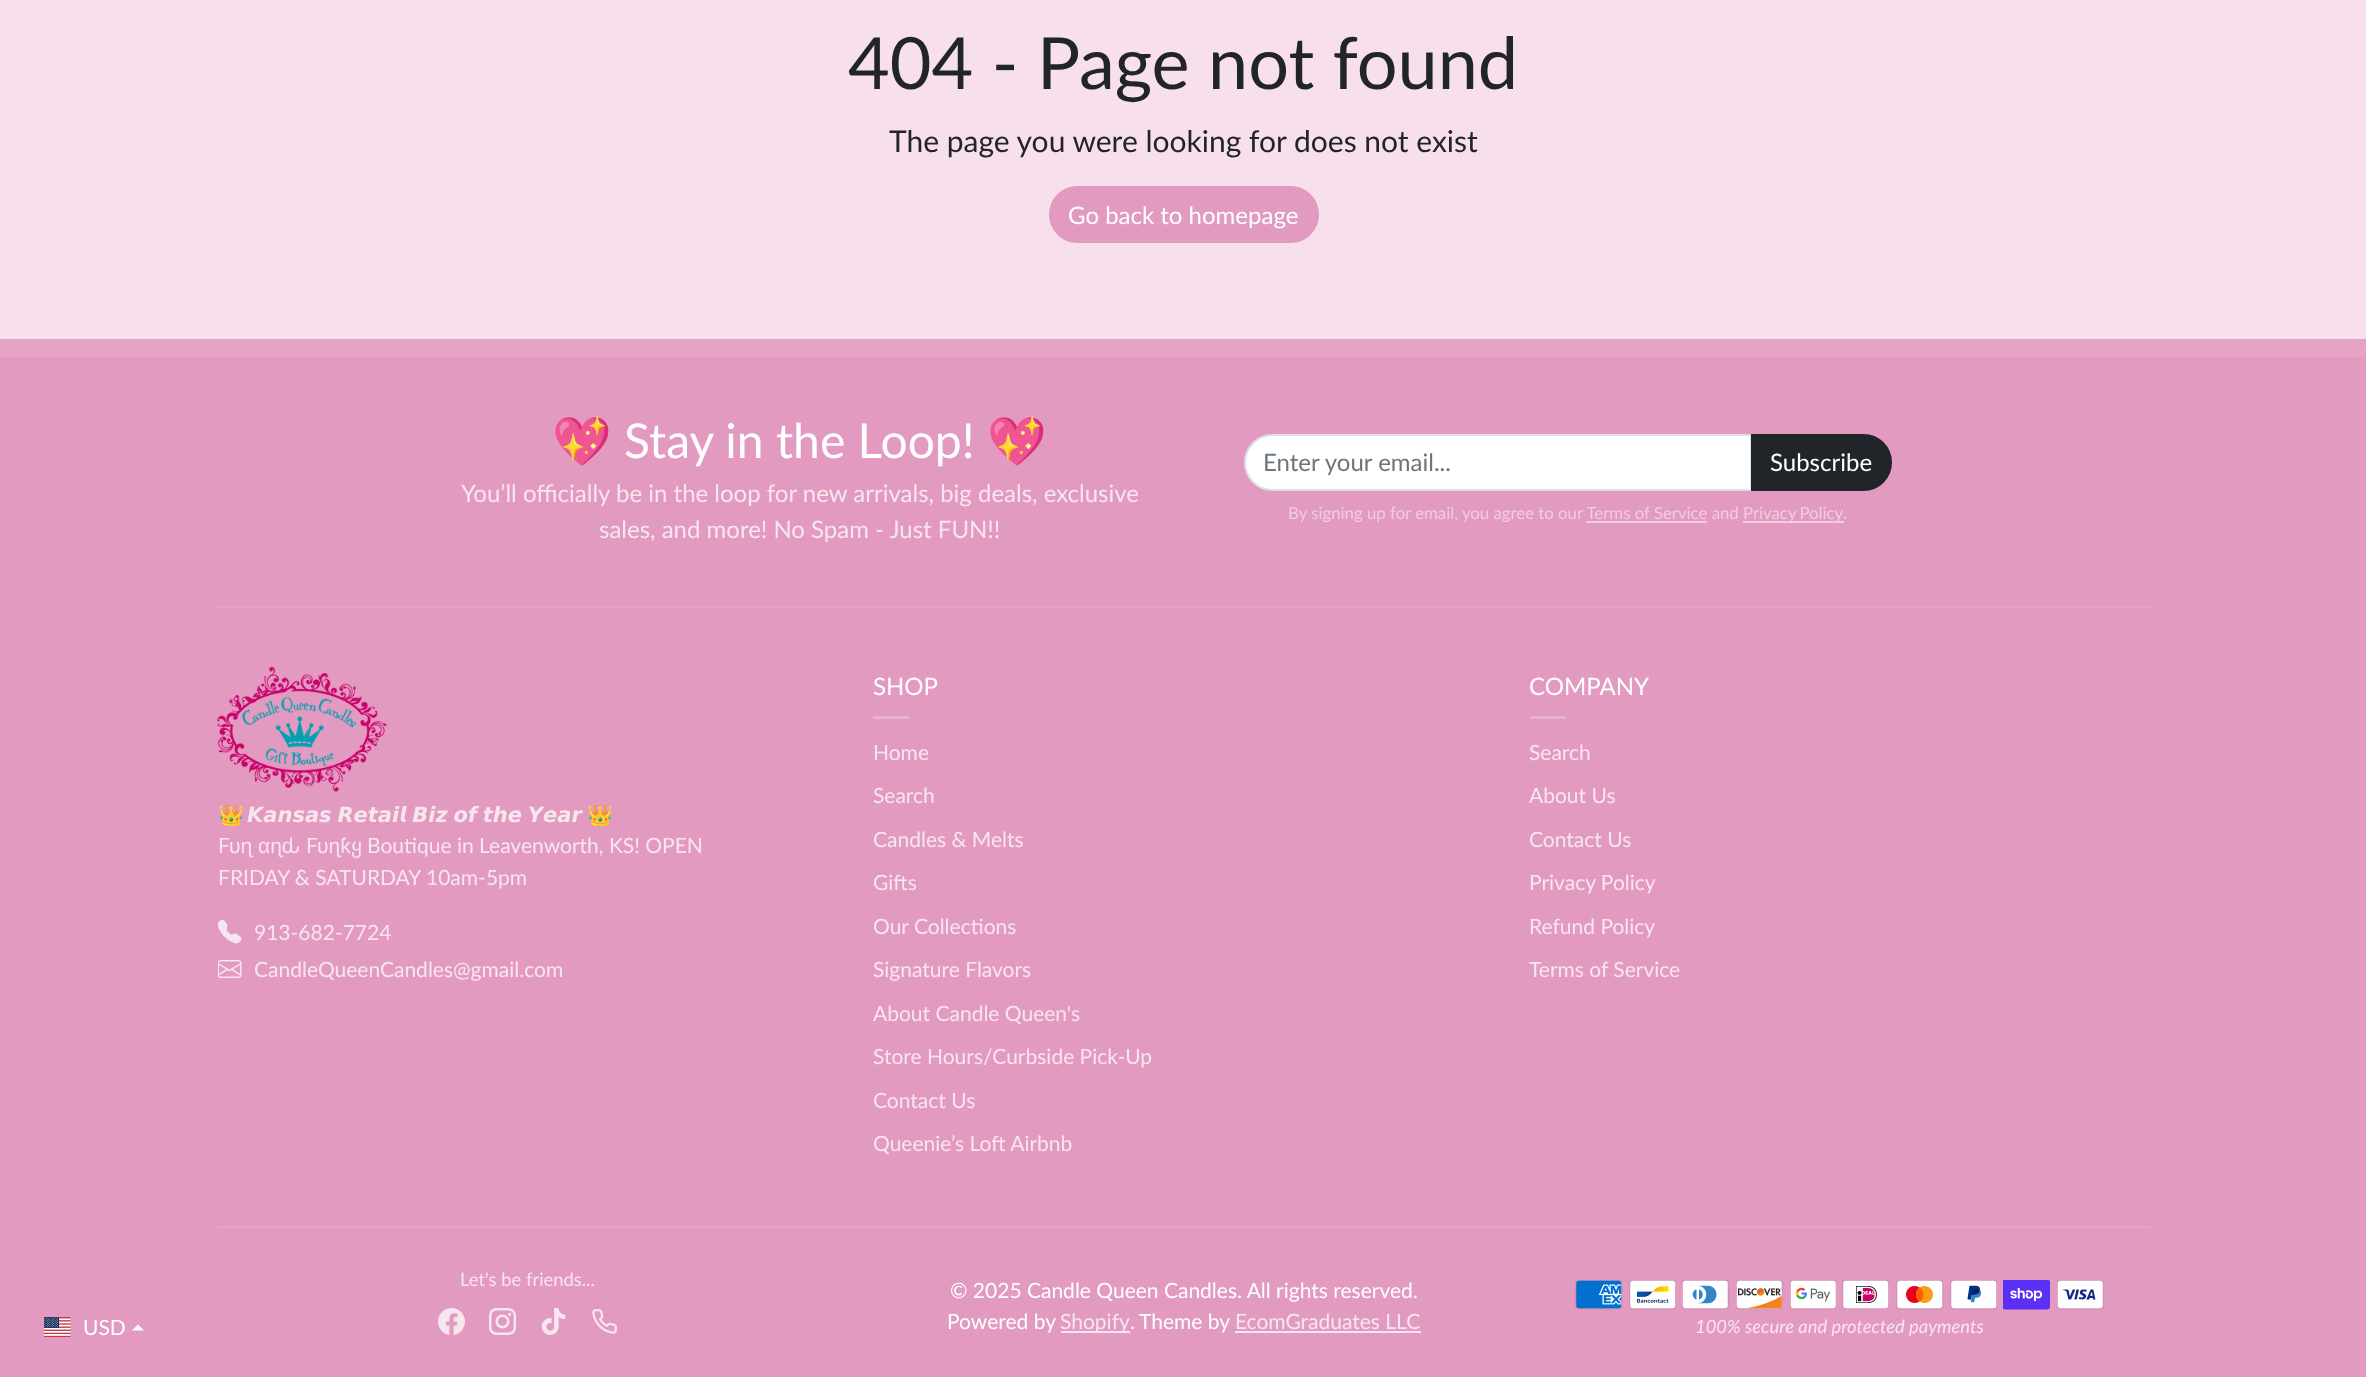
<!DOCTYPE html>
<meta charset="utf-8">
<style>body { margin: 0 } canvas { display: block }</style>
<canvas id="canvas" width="2366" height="1377"></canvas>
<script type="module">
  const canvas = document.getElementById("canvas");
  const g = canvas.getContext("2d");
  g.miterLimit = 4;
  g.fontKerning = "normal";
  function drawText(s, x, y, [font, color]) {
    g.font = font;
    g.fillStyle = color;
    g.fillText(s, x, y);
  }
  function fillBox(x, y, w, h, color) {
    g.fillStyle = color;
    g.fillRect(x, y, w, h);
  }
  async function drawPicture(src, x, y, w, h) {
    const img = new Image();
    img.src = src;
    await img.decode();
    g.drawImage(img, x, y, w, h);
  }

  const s1 = ["72px Lato", "#212529"];
  const s2 = ["30px Lato", "#212529"];
  const s3 = ["24px Lato", "#FFFFFF"];
  const s4 = ["48px Noto Color Emoji", "#FFFFFF"];
  const s5 = ["48px Lato", "#FFFFFF"];
  const s6 = ["24px Lato", "#F8E6EF"];
  const s7 = ["24px Lato", "#6C757D"];
  const s8 = ["16.8px Lato", "#F1CDE0"];
  const s9 = ["21px Lato", "#FFFFFF"];
  const s10 = ["21px Noto Color Emoji", "#F8E6EF"];
  const s11 = ["italic bold 21px DejaVu Sans", "#F8E6EF"];
  const s12 = ["21px Lato", "#F8E6EF"];
  const s13 = ["21px Liberation Sans", "#F8E6EF"];
  const s14 = ["21px DejaVu Sans", "#F8E6EF"];
  const s15 = ["18.4px Lato", "#F8E6EF"];
  const s16 = ["italic 18.4px Lato", "#F8E6EF"];

  fillBox(0, 0, 2366, 1377, "#F7E0EC");
  drawText("404 - Page not found", 848, 89, s1);
  drawText("The page you were looking for does not exist", 889, 152, s2);
  g.fillStyle = "#E29AC0";
  g.beginPath();
  g.roundRect(1050, 187, 268, 55, 27.5);
  g.fill();
  g.strokeStyle = "#E29AC0";
  g.lineWidth = 2;
  g.stroke();
  drawText("Go back to homepage", 1068, 224, s3);
  fillBox(0, 339, 2366, 18, "#E5A4C6");
  fillBox(0, 357, 2366, 1020, "#E29AC0");
  fillBox(218, 606, 1932, 2, "#E5A4C6");
  drawText("💖", 552, 458, s4);
  drawText("Stay in the Loop!", 624, 458, s5);
  drawText("💖", 987, 458, s4);
  drawText("You’ll officially be in the loop for new arrivals, big deals, exclusive", 461, 502, s6);
  drawText("sales, and more! No Spam - Just FUN!!", 599, 538, s6);
  g.fillStyle = "#FFFFFF";
  g.beginPath();
  g.roundRect(1245, 435, 506, 55, [27.5, 0, 0, 27.5]);
  g.fill();
  g.strokeStyle = "#DAE0E5";
  g.stroke();
  drawText("Enter your email...", 1263, 471, s7);
  g.fillStyle = "#212529";
  g.beginPath();
  g.roundRect(1752, 435, 139, 55, [0, 27.5, 27.5, 0]);
  g.fill();
  g.strokeStyle = "#212529";
  g.stroke();
  drawText("Subscribe", 1770, 471, s3);
  drawText("By signing up for email, you agree to our Terms of Service and", 1288, 519, s8);
  fillBox(1743, 521, 101, 2, "#F1CDE0");
  g.wordSpacing = "-1px";
  drawText("Privacy Policy", 1743, 519, s8);
  g.wordSpacing = "0px";
  drawText(".", 1843, 519, s8);
  fillBox(1586, 521, 121, 2, "#F1CDE0");
  await drawPicture("pic1.png", 44, 1317, 27, 20);
  drawText("USD", 83, 1335, s9);
  g.beginPath();
  g.moveTo(144, 1330.5);
  g.lineTo(132, 1330.5);
  g.lineTo(138, 1324.5);
  g.closePath();
  g.fill();
  await drawPicture("pic2.png", 217, 667, 170, 125);
  drawText("👑", 218, 822, s10);
  g.wordSpacing = "-1.5px";
  drawText("𝙆𝙖𝙣𝙨𝙖𝙨 𝙍𝙚𝙩𝙖𝙞𝙡 𝘽𝙞𝙯 𝙤𝙛 𝙩𝙝𝙚 𝙔𝙚𝙖𝙧", 247, 822, s11);
  g.wordSpacing = "0px";
  drawText("👑", 587, 822, s10);
  drawText("F", 218, 853, s12);
  drawText("υɳ", 229, 853, s13);
  drawText("αɳԃ", 258, 853, s13);
  drawText("F", 306, 853, s12);
  drawText("υɳƙ", 317, 853, s13);
  drawText("ყ", 351, 853, s14);
  drawText("Boutique in Leavenworth, KS! OPEN", 367, 853, s12);
  drawText("FRIDAY & SATURDAY 10am-5pm", 218, 885, s12);
  await drawPicture("pic3.png", 218, 920, 24, 24);
  drawText("913-682-7724", 254, 940, s12);
  await drawPicture("pic4.png", 218, 960, 24, 18);
  drawText("CandleQueenCandles@gmail.com", 254, 977, s12);
  drawText("SHOP", 873, 695, s3);
  fillBox(873, 716, 36, 3, "#E9B3D0");
  drawText("Home", 873, 760, s12);
  drawText("Search", 873, 803, s12);
  drawText("Candles & Melts", 873, 847, s12);
  drawText("Gifts", 873, 890, s12);
  drawText("Our Collections", 873, 934, s12);
  drawText("Signature Flavors", 873, 977, s12);
  drawText("About Candle Queen's", 873, 1021, s12);
  drawText("Store Hours/Curbside Pick-Up", 873, 1064, s12);
  drawText("Contact Us", 873, 1108, s12);
  drawText("Queenie’s Loft Airbnb", 873, 1151, s12);
  drawText("COMPANY", 1529, 695, s3);
  fillBox(1530, 716, 36, 3, "#E9B3D0");
  drawText("Search", 1529, 760, s12);
  drawText("About Us", 1529, 803, s12);
  drawText("Contact Us", 1529, 847, s12);
  drawText("Privacy Policy", 1529, 890, s12);
  drawText("Refund Policy", 1529, 934, s12);
  drawText("Terms of Service", 1529, 977, s12);
  fillBox(218, 1226, 1932, 2, "#E5A4C6");
  drawText("Let's be friends...", 460, 1286, s15);
  await drawPicture("pic5.png", 438, 1308, 27, 27);
  await drawPicture("pic6.png", 489, 1308, 27, 27);
  await drawPicture("pic7.png", 541, 1308, 25, 27);
  await drawPicture("pic8.png", 592, 1309, 25, 25);
  drawText("© 2025 Candle Queen Candles. All rights reserved.", 950, 1298, s9);
  drawText("Powered by", 947, 1329, s9);
  fillBox(1061, 1331, 69, 2, "#F8E6EF");
  drawText(".", 1130, 1329, s9);
  drawText("Shopify", 1060, 1329, s12);
  drawText("Theme by", 1139, 1329, s9);
  drawText("EcomGraduates LLC", 1235, 1329, s12);
  fillBox(1235, 1331, 186, 2, "#F8E6EF");
  await drawPicture("pic9.png", 1575, 1280, 48, 30);
  await drawPicture("pic10.png", 1629, 1280, 47, 30);
  await drawPicture("pic11.png", 1682, 1280, 47, 30);
  await drawPicture("pic12.png", 1736, 1280, 47, 30);
  await drawPicture("pic13.png", 1790, 1280, 46, 30);
  await drawPicture("pic14.png", 1842, 1280, 47, 29);
  await drawPicture("pic15.png", 1896, 1280, 48, 30);
  await drawPicture("pic16.png", 1950, 1280, 47, 30);
  await drawPicture("pic17.png", 2003, 1280, 47, 30);
  await drawPicture("pic18.png", 2057, 1280, 47, 30);
  drawText("100% secure and protected payments", 1695, 1333, s16);
</script>
